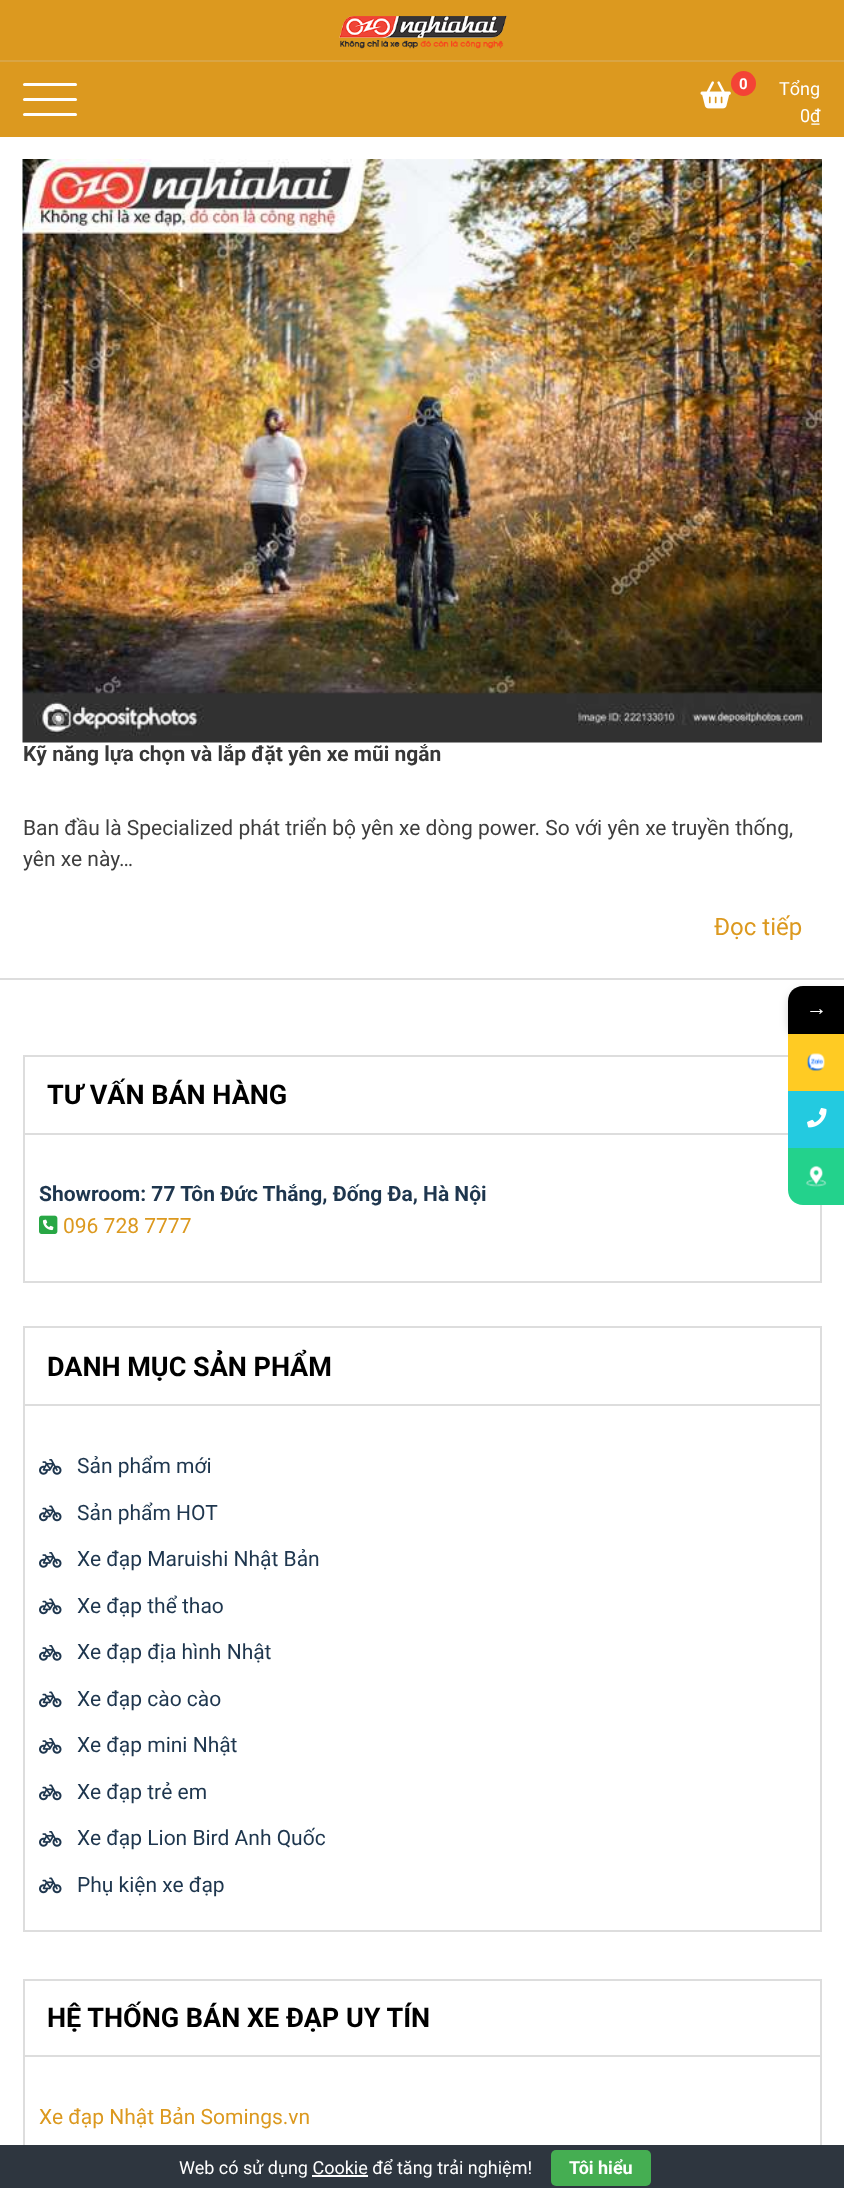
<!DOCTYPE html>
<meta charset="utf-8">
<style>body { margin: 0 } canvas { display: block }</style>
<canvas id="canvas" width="844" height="2188"></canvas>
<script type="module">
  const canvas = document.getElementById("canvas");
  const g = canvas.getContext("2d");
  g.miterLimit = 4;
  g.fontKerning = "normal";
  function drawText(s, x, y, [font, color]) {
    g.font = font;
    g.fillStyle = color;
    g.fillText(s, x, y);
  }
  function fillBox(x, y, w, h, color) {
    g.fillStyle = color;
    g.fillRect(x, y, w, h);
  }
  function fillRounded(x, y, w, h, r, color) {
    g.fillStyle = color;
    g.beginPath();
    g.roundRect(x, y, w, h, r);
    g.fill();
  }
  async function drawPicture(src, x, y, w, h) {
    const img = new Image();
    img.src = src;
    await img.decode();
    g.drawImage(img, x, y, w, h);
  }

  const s1 = ["bold 15px Roboto", "#FFFFFF"];
  const s2 = ["18px Roboto", "#FFFFFF"];
  const s3 = ["bold 21px Roboto", "#383838"];
  const s4 = ["21px Roboto", "#3E3E3E"];
  const s5 = ["24px Roboto", "#DC991F"];
  const s6 = ["bold 27px Roboto", "#000000"];
  const s7 = ["bold 21px Roboto", "#1E364E"];
  const s8 = ["21px Roboto", "#DC991F"];
  const s9 = ["21px Roboto", "#1E364E"];
  const s10 = ["21px Liberation Serif", "#FFFFFF"];
  const s11 = ["bold 18px Roboto", "#FFFFFF"];

  fillBox(0, 0, 844, 2188, "#FFFFFF");
  fillBox(0, 0, 844, 137, "#DC991F");
  fillBox(0, 60, 844, 2, "#D9A545");
  await drawPicture("pic1.png", 339, 15, 168, 34);
  fillRounded(23, 83, 54, 3, 1.5, "#FFFFFF");
  fillRounded(23, 98, 54, 3, 1.5, "#FFFFFF");
  fillRounded(23, 113, 54, 3, 1.5, "#FFFFFF");
  await drawPicture("pic2.png", 700, 81, 31, 28);
  g.fillStyle = "#F44336";
  g.beginPath();
  g.arc(743.5, 83.5, 12.5, 0, Math.PI * 2);
  g.fill();
  drawText("0", 739, 89, s1);
  drawText("Tổng", 779, 95, s2);
  drawText("0₫", 800, 122, s2);
  fillBox(0, 978, 844, 2, "#DDDDDD");
  await drawPicture("pic3.png", 22, 159, 800, 584);
  drawText("Kỹ năng lựa chọn và lắp đặt yên xe mũi ngắn", 23, 761, s3);
  drawText("Ban đầu là Specialized phát triển bộ yên xe dòng power. So với yên xe truyền thống,", 23, 835, s4);
  drawText("yên xe này…", 23, 866, s4);
  drawText("Đọc tiếp", 714, 935, s5);
  g.strokeStyle = "#DDDDDD";
  g.lineWidth = 2;
  g.strokeRect(24, 1056, 797, 226);
  drawText("TƯ VẤN BÁN HÀNG", 47, 1104, s6);
  fillBox(24, 1133, 764, 2, "#DDDDDD");
  drawText("Showroom: 77 Tôn Đức Thắng, Đống Đa, Hà Nội", 39, 1201, s7);
  await drawPicture("pic4.png", 39, 1215, 19, 19);
  drawText("096 728 7777", 63, 1233, s8);
  g.strokeRect(24, 1327, 797, 604);
  drawText("DANH MỤC SẢN PHẨM", 47, 1376, s6);
  fillBox(24, 1404, 797, 2, "#DDDDDD");
  await drawPicture("pic5.png", 39, 1459, 23, 16);
  drawText("Sản phẩm mới", 77, 1473, s9);
  await drawPicture("pic6.png", 39, 1505, 23, 17);
  drawText("Sản phẩm HOT", 77, 1520, s9);
  await drawPicture("pic5.png", 39, 1552, 23, 16);
  drawText("Xe đạp Maruishi Nhật Bản", 77, 1566, s9);
  await drawPicture("pic6.png", 39, 1598, 23, 17);
  drawText("Xe đạp thể thao", 77, 1613, s9);
  await drawPicture("pic5.png", 39, 1645, 23, 16);
  drawText("Xe đạp địa hình Nhật", 77, 1659, s9);
  await drawPicture("pic6.png", 39, 1691, 23, 17);
  drawText("Xe đạp cào cào", 77, 1706, s9);
  await drawPicture("pic5.png", 39, 1738, 23, 16);
  drawText("Xe đạp mini Nhật", 77, 1752, s9);
  await drawPicture("pic6.png", 39, 1784, 23, 17);
  drawText("Xe đạp trẻ em", 77, 1799, s9);
  await drawPicture("pic5.png", 39, 1831, 23, 16);
  drawText("Xe đạp Lion Bird Anh Quốc", 77, 1845, s9);
  await drawPicture("pic6.png", 39, 1877, 23, 17);
  drawText("Phụ kiện xe đạp", 77, 1892, s9);
  g.strokeRect(24, 1980, 797, 193);
  drawText("HỆ THỐNG BÁN XE ĐẠP UY TÍN", 47, 2027, s6);
  fillBox(24, 2055, 797, 2, "#DDDDDD");
  drawText("Xe đạp Nhật Bản Somings.vn", 39, 2124, s8);
  g.fillStyle = "rgba(0, 0, 0, 0.16)";
  g.filter = "blur(4.5px)";
  g.beginPath();
  g.roundRect(788, 990, 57, 48, 15);
  g.fill();
  g.filter = "none";
  g.fillStyle = "#000000";
  g.beginPath();
  g.moveTo(803, 986);
  g.lineTo(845, 986);
  g.lineTo(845, 1034);
  g.lineTo(788, 1034);
  g.lineTo(788, 1001);
  g.bezierCurveTo(788, 992.5, 794.5, 986, 803, 986);
  g.closePath();
  g.fill();
  drawText("→", 806, 1015, s10);
  fillBox(788, 1034, 56, 57, "#FFCB23");
  await drawPicture("pic7.png", 807, 1053, 18, 18);
  fillBox(788, 1091, 56, 57, "#23CAE0");
  await drawPicture("pic8.png", 807, 1108, 20, 20);
  g.fillStyle = "#23D28C";
  g.beginPath();
  g.moveTo(788, 1148);
  g.lineTo(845, 1148);
  g.lineTo(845, 1205);
  g.lineTo(803, 1205);
  g.bezierCurveTo(794.5, 1205, 788, 1198.5, 788, 1190);
  g.closePath();
  g.fill();
  await drawPicture("pic9.png", 806, 1165, 21, 22);
  fillBox(0, 2145, 844, 43, "#2E363F");
  drawText("Web có sử dụng Cookie để tăng trải nghiệm!", 179, 2174, s2);
  fillRounded(551, 2150, 100, 36, 5, "#45AE52");
  drawText("Tôi hiểu", 569, 2174, s11);
  fillBox(312, 2175, 56, 2, "#FFFFFF");
</script>
